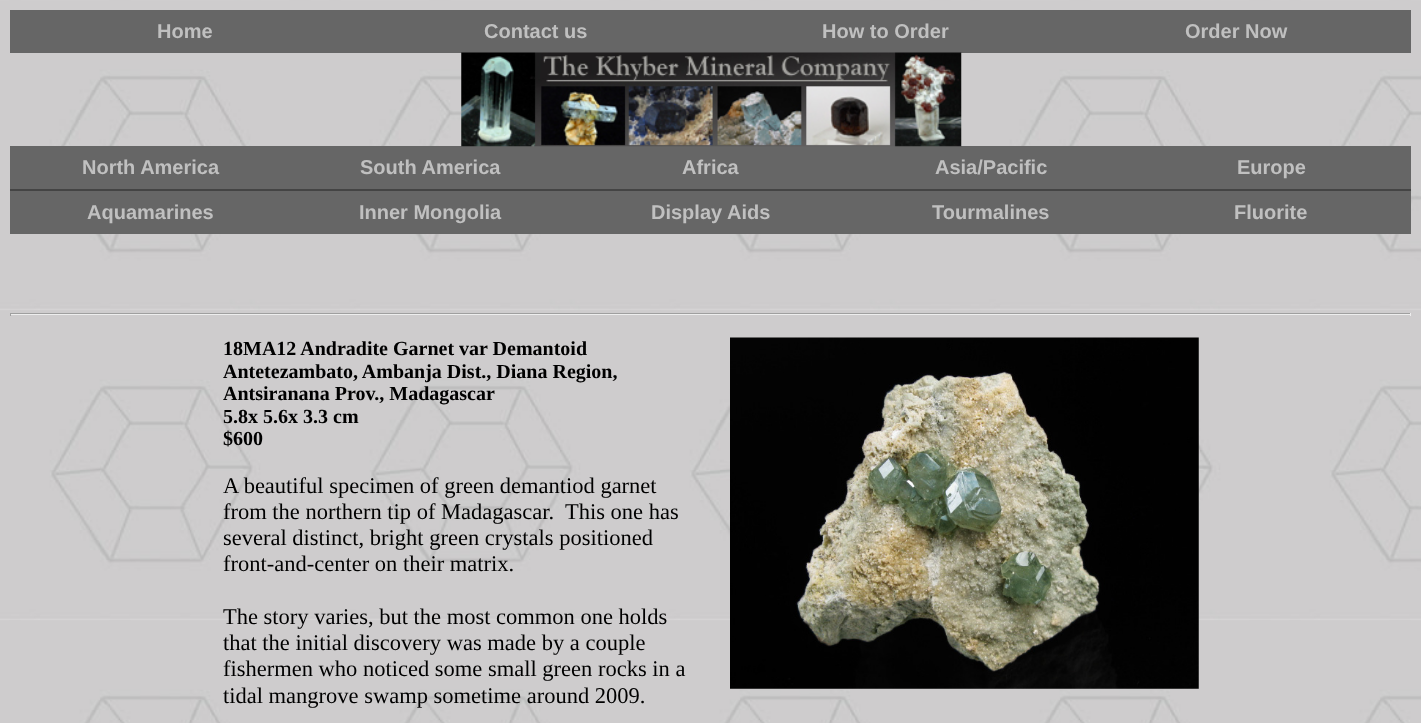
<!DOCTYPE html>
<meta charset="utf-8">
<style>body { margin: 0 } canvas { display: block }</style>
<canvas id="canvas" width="1421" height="723"></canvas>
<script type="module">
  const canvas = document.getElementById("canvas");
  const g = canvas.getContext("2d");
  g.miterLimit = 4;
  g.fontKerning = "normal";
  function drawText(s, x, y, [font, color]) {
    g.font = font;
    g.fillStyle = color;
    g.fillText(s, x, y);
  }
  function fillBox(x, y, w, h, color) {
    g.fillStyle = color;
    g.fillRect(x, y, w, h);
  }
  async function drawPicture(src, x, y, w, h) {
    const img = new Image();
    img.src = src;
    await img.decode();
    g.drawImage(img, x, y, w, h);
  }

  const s1 = ["bold 20px Liberation Sans", "#C0C0C0"];
  const s2 = ["bold 20px Liberation Serif", "#000000"];
  const s3 = ["22.5px Liberation Serif", "#000000"];

  fillBox(0, 0, 1421, 723, "#FFFFFF");
  await drawPicture("pic1.png", 0, 0, 1421, 723);
  fillBox(10, 10, 1401, 43, "#666666");
  drawText("Home", 157, 38, s1);
  drawText("Contact us", 484, 38, s1);
  drawText("How to Order", 822, 38, s1);
  drawText("Order Now", 1185, 38, s1);
  fillBox(10, 146, 1401, 43, "#666666");
  await drawPicture("pic2.png", 461, 52, 501, 95);
  drawText("North America", 82, 174, s1);
  drawText("South America", 360, 174, s1);
  drawText("Africa", 682, 174, s1);
  drawText("Asia/Pacific", 935, 174, s1);
  drawText("Europe", 1237, 174, s1);
  fillBox(10, 189, 1401, 2, "#444444");
  fillBox(10, 191, 1401, 43, "#666666");
  drawText("Aquamarines", 87, 219, s1);
  drawText("Inner Mongolia", 359, 219, s1);
  drawText("Display Aids", 651, 219, s1);
  drawText("Tourmalines", 932, 219, s1);
  drawText("Fluorite", 1234, 219, s1);
  fillBox(10, 313, 1401, 1, "#9F9F9F");
  fillBox(1410, 313, 1, 3, "#EEEEEE");
  fillBox(10, 314, 1401, 1, "#EEEEEE");
  fillBox(10, 313, 1, 3, "#9F9F9F");
  drawText("18MA12 Andradite Garnet var Demantoid", 223, 355, s2);
  drawText("Antetezambato, Ambanja Dist., Diana Region,", 223, 378, s2);
  drawText("Antsiranana Prov., Madagascar", 223, 400, s2);
  drawText("5.8x 5.6x 3.3 cm", 223, 423, s2);
  drawText("$600", 223, 445, s2);
  drawText("A beautiful specimen of green demantiod garnet", 223, 493, s3);
  drawText("from the northern tip of Madagascar.  This one has", 223, 519, s3);
  drawText("several distinct, bright green crystals positioned", 223, 545, s3);
  drawText("front-and-center on their matrix.", 223, 571, s3);
  drawText("The story varies, but the most common one holds", 223, 624, s3);
  drawText("that the initial discovery was made by a couple", 223, 650, s3);
  drawText("fishermen who noticed some small green rocks in a", 223, 676, s3);
  drawText("tidal mangrove swamp sometime around 2009.", 223, 703, s3);
  await drawPicture("pic3.png", 730, 337, 469, 352);
</script>
